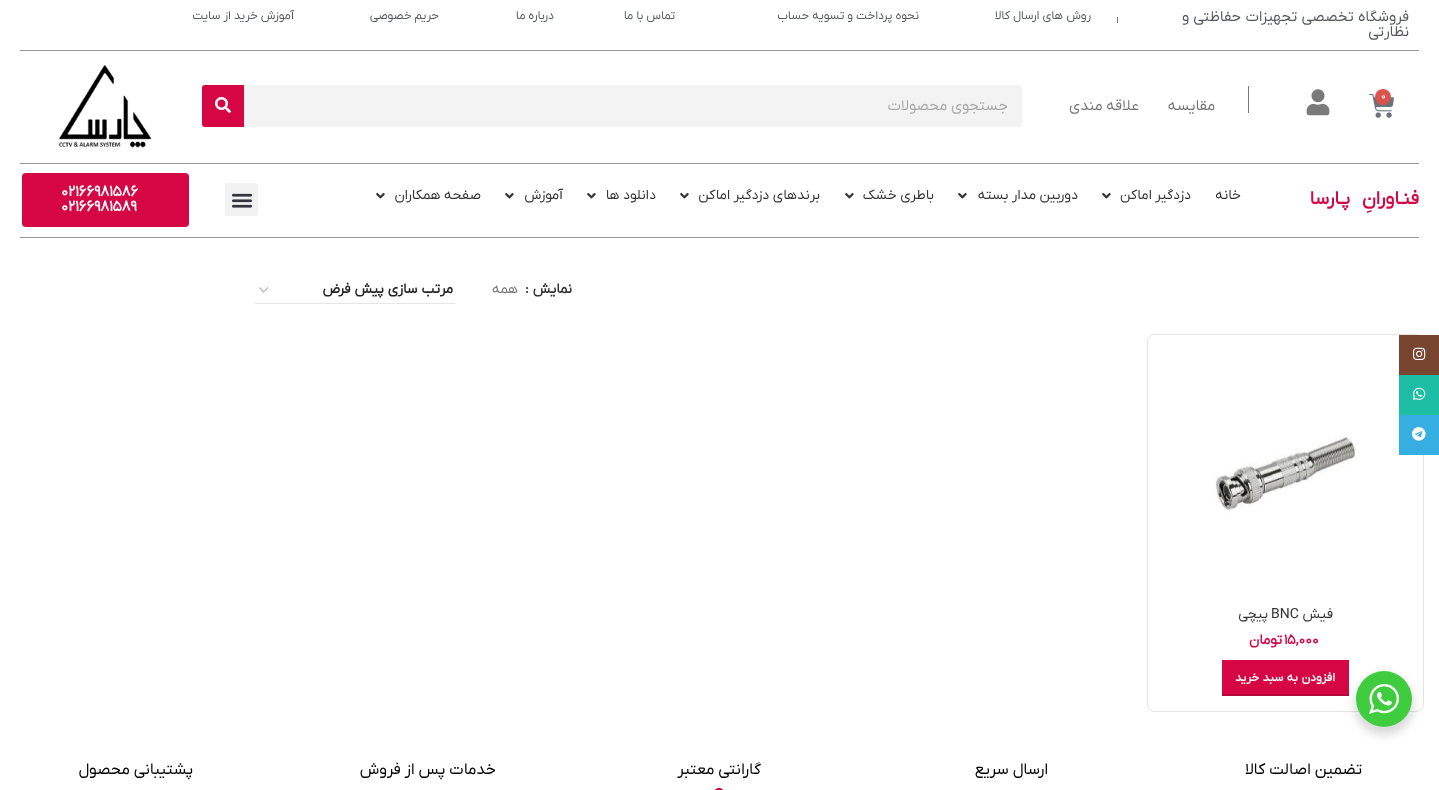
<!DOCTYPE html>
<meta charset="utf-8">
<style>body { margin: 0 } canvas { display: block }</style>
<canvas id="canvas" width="1439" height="790"></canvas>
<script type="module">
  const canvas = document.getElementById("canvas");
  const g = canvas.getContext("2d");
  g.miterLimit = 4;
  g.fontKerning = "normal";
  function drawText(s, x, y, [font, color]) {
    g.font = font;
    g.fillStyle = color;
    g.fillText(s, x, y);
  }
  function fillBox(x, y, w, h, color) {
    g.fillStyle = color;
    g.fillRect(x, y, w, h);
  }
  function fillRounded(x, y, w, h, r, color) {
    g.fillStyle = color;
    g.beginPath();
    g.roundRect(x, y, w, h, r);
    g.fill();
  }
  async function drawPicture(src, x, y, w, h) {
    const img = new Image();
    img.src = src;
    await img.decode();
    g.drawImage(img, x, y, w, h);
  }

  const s1 = ["15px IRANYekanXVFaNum", "#54595F"];
  const s2 = ["12px IRANYekanXVFaNum", "#54595F"];
  const s3 = ["10px IRANYekanXVFaNum", "#FFFFFF"];
  const s4 = ["15px IRANYekanXVFaNum", "#767676"];
  const s5 = ["15px IRANYekanXVFaNum", "#A9A9A9"];
  const s6 = ["bold 19px IRANYekanXVFaNum", "#D60644"];
  const s7 = ["14px IRANYekanXVFaNum", "#333333"];
  const s8 = ["bold 15px IRANYekanXVFaNum", "#FFFFFF"];
  const s9 = ["bold 14px IRANYekanXVFaNum", "#333333"];
  const s10 = ["14px IRANYekanXVFaNum", "#767676"];
  const s11 = ["bold 14px IRANYekanXVFaNum", "#242424"];
  const s12 = ["bold 14px IRANYekanXVFaNum", "#D60644"];
  const s13 = ["bold 12px IRANYekanXVFaNum", "#FFFFFF"];
  const s14 = ["16px IRANYekanXVFaNum", "#000000"];

  fillBox(0, 0, 1439, 790, "#FFFFFF");
  g.beginPath();
  g.roundRect(1147.5, 334.5, 276, 377, 7.5);
  g.strokeStyle = "#E4E4E4";
  g.stroke();
  fillBox(1399, 335, 40, 40, "#774430");
  await drawPicture("pic1.png", 1413, 347, 13, 13);
  fillBox(1399, 375, 40, 40, "#1EBEA5");
  await drawPicture("pic2.png", 1413, 387, 13, 13);
  fillBox(1399, 415, 40, 40, "#37AEE2");
  await drawPicture("pic3.png", 1412, 427, 14, 14);
  fillBox(20, 50, 1399, 1, "#999999");
  g.wordSpacing = "0.5px";
  g.direction = "rtl";
  drawText("فروشگاه تخصصی تجهیزات حفاظتی و", 1409, 21, s1);
  g.wordSpacing = "0px";
  drawText("نظارتی", 1409, 36, s1);
  fillBox(1117, 17, 1, 6, "#7A7A7A");
  drawText("روش های ارسال کالا", 1091, 19, s2);
  drawText("نحوه پرداخت و تسویه حساب", 919, 19, s2);
  drawText("تماس با ما", 675, 19, s2);
  drawText("درباره ما", 554, 19, s2);
  drawText("حریم خصوصی", 439, 19, s2);
  drawText("آموزش خرید از سایت", 294, 19, s2);
  fillBox(20, 163, 1399, 1, "#999999");
  await drawPicture("pic4.png", 1369, 94, 25, 24);
  g.fillStyle = "#D9534F";
  g.beginPath();
  g.arc(1383, 97, 8, 0, Math.PI * 2);
  g.fill();
  g.direction = "ltr";
  drawText("0", 1381, 99, s3);
  await drawPicture("pic5.png", 1306, 89, 24, 27);
  fillBox(1248, 86, 1, 27, "#7A7A7A");
  await drawPicture("pic6.png", 58, 65, 94, 83);
  g.direction = "rtl";
  drawText("مقایسه", 1215, 110, s4);
  drawText("علاقه مندی", 1139, 110, s4);
  fillRounded(202, 85, 820, 42, 3, "#F3F3F3");
  drawText("جستجوی محصولات", 1008, 110, s5);
  g.fillStyle = "#D60644";
  g.beginPath();
  g.roundRect(202, 85, 42, 42, [3, 0, 0, 3]);
  g.fill();
  await drawPicture("pic7.png", 215, 97, 16, 16);
  fillBox(20, 237, 1399, 1, "#999999");
  g.wordSpacing = "7px";
  drawText("فنـاورانِ پـارسا", 1419, 204, s6);
  g.wordSpacing = "0px";
  drawText("خانه", 1241, 199, s7);
  drawText("دزدگیر اماکن", 1191, 199, s7);
  await drawPicture("pic8.png", 1102, 193, 9, 6);
  drawText("دوربین مدار بسته", 1078, 199, s7);
  await drawPicture("pic8.png", 958, 193, 9, 6);
  drawText("باطری خشک", 934, 199, s7);
  await drawPicture("pic8.png", 845, 193, 9, 6);
  drawText("برندهای دزدگیر اماکن", 820, 199, s7);
  await drawPicture("pic8.png", 680, 193, 9, 6);
  drawText("دانلود ها", 656, 199, s7);
  await drawPicture("pic8.png", 587, 193, 9, 6);
  drawText("آموزش", 563, 199, s7);
  await drawPicture("pic8.png", 505, 193, 9, 6);
  drawText("صفحه همکاران", 481, 199, s7);
  await drawPicture("pic8.png", 376, 193, 9, 6);
  fillRounded(225, 183, 33, 33, 3, "#F2F2F2");
  await drawPicture("pic9.png", 231, 193, 22, 15);
  fillRounded(22, 173, 167, 54, 4, "#D60644");
  g.direction = "ltr";
  drawText("02166981586", 61, 196, s8);
  drawText("02166981589", 61, 211, s8);
  g.direction = "rtl";
  drawText("نمایش", 572, 293, s9);
  g.direction = "ltr";
  drawText(":", 525, 293, s9);
  g.direction = "rtl";
  drawText("همه", 518, 293, s10);
  g.beginPath();
  g.moveTo(259.5, 287.5);
  g.lineTo(263.5, 292);
  g.lineTo(268, 287.5);
  g.strokeStyle = "#BBBBBB";
  g.lineWidth = 1.4;
  g.stroke();
  fillBox(255, 303, 200, 1, "#E6E6E6");
  g.wordSpacing = "0.5px";
  drawText("مرتب سازی پیش فرض", 453, 293, s11);
  await drawPicture("pic10.png", 1215, 435, 144, 78);
  g.wordSpacing = "0px";
  drawText("فیش", 1333, 618, s7);
  g.direction = "ltr";
  drawText("BNC", 1271, 618, s7);
  g.direction = "rtl";
  drawText("پیچی", 1268, 618, s7);
  g.direction = "ltr";
  drawText("۱۵,۰۰۰", 1284, 644, s12);
  g.direction = "rtl";
  drawText("تومان", 1282, 644, s12);
  fillBox(1222, 660, 127, 34, "#D60644");
  fillBox(1222, 694, 127, 2, "#B6053A");
  g.wordSpacing = "0.5px";
  drawText("افزودن به سبد خرید", 1335, 681, s13);
  g.wordSpacing = "0px";
  drawText("تضمین اصالت کالا", 1362, 774, s14);
  drawText("ارسال سریع", 1048, 774, s14);
  drawText("گارانتی معتبر", 761, 774, s14);
  drawText("خدمات پس از فروش", 496, 774, s14);
  drawText("پشتیبانی محصول", 193, 774, s14);
  fillBox(714, 788, 10, 2, "#D60644");
  g.save();
  g.beginPath();
  g.rect(0, 787, 1439, 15);
  g.clip();
  g.fillStyle = "#FFFFFF";
  g.beginPath();
  g.moveTo(698, 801);
  g.lineTo(719, 787);
  g.lineTo(740, 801);
  g.lineTo(1439, 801);
  g.lineTo(1439, 786);
  g.lineTo(-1, 786);
  g.lineTo(-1, 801);
  g.fill();
  g.restore();
  g.fillStyle = "rgba(0, 0, 0, 0.14)";
  g.filter = "blur(4px)";
  g.beginPath();
  g.roundRect(1354, 675, 60, 60, 30);
  g.fill();
  g.filter = "none";
  g.fillStyle = "#3FCC3F";
  g.beginPath();
  g.arc(1384, 699, 28, 0, Math.PI * 2);
  g.fill();
  await drawPicture("pic11.png", 1369, 684, 30, 30);
</script>
